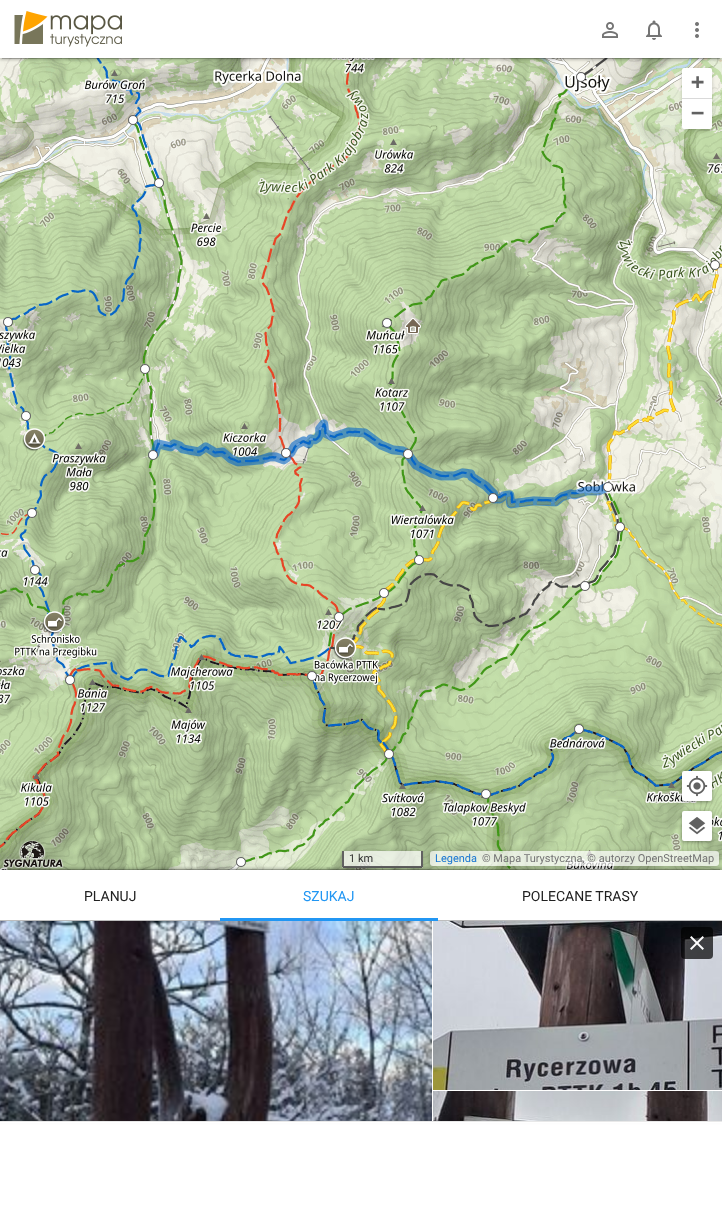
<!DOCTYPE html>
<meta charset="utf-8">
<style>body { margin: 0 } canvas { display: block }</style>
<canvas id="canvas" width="722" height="1221"></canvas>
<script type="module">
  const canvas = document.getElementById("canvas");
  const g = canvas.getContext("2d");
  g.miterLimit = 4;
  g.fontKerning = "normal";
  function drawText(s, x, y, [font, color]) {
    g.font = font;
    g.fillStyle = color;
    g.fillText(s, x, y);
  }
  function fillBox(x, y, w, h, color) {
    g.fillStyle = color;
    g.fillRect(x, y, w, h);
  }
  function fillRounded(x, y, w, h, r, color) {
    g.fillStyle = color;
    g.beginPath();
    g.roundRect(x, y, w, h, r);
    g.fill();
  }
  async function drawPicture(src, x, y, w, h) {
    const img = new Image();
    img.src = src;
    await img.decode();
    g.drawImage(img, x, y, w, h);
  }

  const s1 = ["bold 22px DejaVu Sans Mono", "#616161"];
  const s2 = ["11px Roboto", "#333333"];
  const s3 = ["11px Roboto", "#1976D2"];
  const s4 = ["11px Roboto", "#757575"];
  const s5 = ["14px Roboto", "#212121"];
  const s6 = ["14px Roboto", "#2196F3"];

  fillBox(0, 0, 722, 1221, "#FFFFFF");
  await drawPicture("pic1.png", 0, 58, 199, 150);
  await drawPicture("pic2.png", 199, 58, 256, 150);
  await drawPicture("pic3.png", 455, 58, 256, 150);
  await drawPicture("pic4.png", 711, 58, 11, 150);
  await drawPicture("pic5.png", 0, 208, 199, 256);
  await drawPicture("pic6.png", 199, 208, 256, 256);
  await drawPicture("pic7.png", 455, 208, 256, 256);
  await drawPicture("pic8.png", 711, 208, 11, 256);
  await drawPicture("pic9.png", 0, 464, 199, 256);
  await drawPicture("pic10.png", 199, 464, 256, 256);
  await drawPicture("pic11.png", 455, 464, 256, 256);
  await drawPicture("pic12.png", 711, 464, 11, 256);
  await drawPicture("pic13.png", 0, 720, 199, 150);
  await drawPicture("pic14.png", 199, 720, 256, 150);
  await drawPicture("pic15.png", 455, 720, 256, 150);
  await drawPicture("pic16.png", 711, 720, 11, 150);
  g.fillStyle = "rgba(0, 0, 0, 0.5)";
  g.filter = "blur(0.5px)";
  g.beginPath();
  g.roundRect(576, 72, 10, 10, 5);
  g.fill();
  g.filter = "none";
  g.fillStyle = "#FFFFFF";
  g.beginPath();
  g.arc(581, 77, 4.5, 0, Math.PI * 2);
  g.fill();
  g.strokeStyle = "#666666";
  g.stroke();
  g.fillStyle = "rgba(0, 0, 0, 0.5)";
  g.filter = "blur(0.5px)";
  g.beginPath();
  g.roundRect(128, 115, 10, 10, 5);
  g.fill();
  g.filter = "none";
  g.fillStyle = "#FFFFFF";
  g.beginPath();
  g.arc(133, 120, 4.5, 0, Math.PI * 2);
  g.fill();
  g.stroke();
  g.fillStyle = "rgba(0, 0, 0, 0.5)";
  g.filter = "blur(0.5px)";
  g.beginPath();
  g.roundRect(154, 178, 10, 10, 5);
  g.fill();
  g.filter = "none";
  g.fillStyle = "#FFFFFF";
  g.beginPath();
  g.arc(159, 183, 4.5, 0, Math.PI * 2);
  g.fill();
  g.stroke();
  g.fillStyle = "rgba(0, 0, 0, 0.5)";
  g.filter = "blur(0.5px)";
  g.beginPath();
  g.roundRect(710, 260, 10, 10, 5);
  g.fill();
  g.filter = "none";
  g.fillStyle = "#FFFFFF";
  g.beginPath();
  g.arc(715, 265, 4.5, 0, Math.PI * 2);
  g.fill();
  g.stroke();
  g.fillStyle = "rgba(0, 0, 0, 0.5)";
  g.filter = "blur(0.5px)";
  g.beginPath();
  g.roundRect(3, 317, 10, 10, 5);
  g.fill();
  g.filter = "none";
  g.fillStyle = "#FFFFFF";
  g.beginPath();
  g.arc(8, 322, 4.5, 0, Math.PI * 2);
  g.fill();
  g.stroke();
  g.fillStyle = "rgba(0, 0, 0, 0.5)";
  g.filter = "blur(0.5px)";
  g.beginPath();
  g.roundRect(382, 318, 10, 10, 5);
  g.fill();
  g.filter = "none";
  g.fillStyle = "#FFFFFF";
  g.beginPath();
  g.arc(387, 323, 4.5, 0, Math.PI * 2);
  g.fill();
  g.stroke();
  g.fillStyle = "rgba(0, 0, 0, 0.5)";
  g.filter = "blur(0.5px)";
  g.beginPath();
  g.roundRect(140, 364, 10, 10, 5);
  g.fill();
  g.filter = "none";
  g.fillStyle = "#FFFFFF";
  g.beginPath();
  g.arc(145, 369, 4.5, 0, Math.PI * 2);
  g.fill();
  g.stroke();
  g.fillStyle = "rgba(0, 0, 0, 0.5)";
  g.filter = "blur(0.5px)";
  g.beginPath();
  g.roundRect(21, 411, 10, 10, 5);
  g.fill();
  g.filter = "none";
  g.fillStyle = "#FFFFFF";
  g.beginPath();
  g.arc(26, 416, 4.5, 0, Math.PI * 2);
  g.fill();
  g.stroke();
  await drawPicture("pic17.png", 22, 428, 24, 24);
  await drawPicture("pic20.png", 148, 419, 465, 90);
  g.fillStyle = "rgba(0, 0, 0, 0.5)";
  g.filter = "blur(0.5px)";
  g.beginPath();
  g.roundRect(148, 450, 10, 10, 5);
  g.fill();
  g.filter = "none";
  g.fillStyle = "#FFFFFF";
  g.beginPath();
  g.arc(153, 455, 4.5, 0, Math.PI * 2);
  g.fill();
  g.stroke();
  g.fillStyle = "rgba(0, 0, 0, 0.5)";
  g.filter = "blur(0.5px)";
  g.beginPath();
  g.roundRect(281, 448, 10, 10, 5);
  g.fill();
  g.filter = "none";
  g.fillStyle = "#FFFFFF";
  g.beginPath();
  g.arc(286, 453, 4.5, 0, Math.PI * 2);
  g.fill();
  g.stroke();
  g.fillStyle = "rgba(0, 0, 0, 0.5)";
  g.filter = "blur(0.5px)";
  g.beginPath();
  g.roundRect(403, 449, 10, 10, 5);
  g.fill();
  g.filter = "none";
  g.fillStyle = "#FFFFFF";
  g.beginPath();
  g.arc(408, 454, 4.5, 0, Math.PI * 2);
  g.fill();
  g.stroke();
  g.fillStyle = "rgba(0, 0, 0, 0.5)";
  g.filter = "blur(0.5px)";
  g.beginPath();
  g.roundRect(603, 482, 10, 10, 5);
  g.fill();
  g.filter = "none";
  g.fillStyle = "#FFFFFF";
  g.beginPath();
  g.arc(608, 487, 4.5, 0, Math.PI * 2);
  g.fill();
  g.stroke();
  g.fillStyle = "rgba(0, 0, 0, 0.5)";
  g.filter = "blur(0.5px)";
  g.beginPath();
  g.roundRect(488, 493, 10, 10, 5);
  g.fill();
  g.filter = "none";
  g.fillStyle = "#FFFFFF";
  g.beginPath();
  g.arc(493, 498, 4.5, 0, Math.PI * 2);
  g.fill();
  g.stroke();
  g.fillStyle = "rgba(0, 0, 0, 0.5)";
  g.filter = "blur(0.5px)";
  g.beginPath();
  g.roundRect(27, 508, 10, 10, 5);
  g.fill();
  g.filter = "none";
  g.fillStyle = "#FFFFFF";
  g.beginPath();
  g.arc(32, 513, 4.5, 0, Math.PI * 2);
  g.fill();
  g.stroke();
  g.fillStyle = "rgba(0, 0, 0, 0.5)";
  g.filter = "blur(0.5px)";
  g.beginPath();
  g.roundRect(615, 522, 10, 10, 5);
  g.fill();
  g.filter = "none";
  g.fillStyle = "#FFFFFF";
  g.beginPath();
  g.arc(620, 527, 4.5, 0, Math.PI * 2);
  g.fill();
  g.stroke();
  g.fillStyle = "rgba(0, 0, 0, 0.5)";
  g.filter = "blur(0.5px)";
  g.beginPath();
  g.roundRect(414, 555, 10, 10, 5);
  g.fill();
  g.filter = "none";
  g.fillStyle = "#FFFFFF";
  g.beginPath();
  g.arc(419, 560, 4.5, 0, Math.PI * 2);
  g.fill();
  g.stroke();
  g.fillStyle = "rgba(0, 0, 0, 0.5)";
  g.filter = "blur(0.5px)";
  g.beginPath();
  g.roundRect(30, 565, 10, 10, 5);
  g.fill();
  g.filter = "none";
  g.fillStyle = "#FFFFFF";
  g.beginPath();
  g.arc(35, 570, 4.5, 0, Math.PI * 2);
  g.fill();
  g.stroke();
  g.fillStyle = "rgba(0, 0, 0, 0.5)";
  g.filter = "blur(0.5px)";
  g.beginPath();
  g.roundRect(379, 588, 10, 10, 5);
  g.fill();
  g.filter = "none";
  g.fillStyle = "#FFFFFF";
  g.beginPath();
  g.arc(384, 593, 4.5, 0, Math.PI * 2);
  g.fill();
  g.stroke();
  g.fillStyle = "rgba(0, 0, 0, 0.5)";
  g.filter = "blur(0.5px)";
  g.beginPath();
  g.roundRect(580, 581, 10, 10, 5);
  g.fill();
  g.filter = "none";
  g.fillStyle = "#FFFFFF";
  g.beginPath();
  g.arc(585, 586, 4.5, 0, Math.PI * 2);
  g.fill();
  g.stroke();
  await drawPicture("pic18.png", 42, 611, 24, 24);
  g.fillStyle = "rgba(0, 0, 0, 0.5)";
  g.filter = "blur(0.5px)";
  g.beginPath();
  g.roundRect(334, 612, 10, 10, 5);
  g.fill();
  g.filter = "none";
  g.fillStyle = "#FFFFFF";
  g.beginPath();
  g.arc(339, 617, 4.5, 0, Math.PI * 2);
  g.fill();
  g.stroke();
  await drawPicture("pic19.png", 333, 637, 24, 24);
  g.fillStyle = "rgba(0, 0, 0, 0.5)";
  g.filter = "blur(0.5px)";
  g.beginPath();
  g.roundRect(65, 675, 10, 10, 5);
  g.fill();
  g.filter = "none";
  g.fillStyle = "#FFFFFF";
  g.beginPath();
  g.arc(70, 680, 4.5, 0, Math.PI * 2);
  g.fill();
  g.stroke();
  g.fillStyle = "rgba(0, 0, 0, 0.5)";
  g.filter = "blur(0.5px)";
  g.beginPath();
  g.roundRect(307, 671, 10, 10, 5);
  g.fill();
  g.filter = "none";
  g.fillStyle = "#FFFFFF";
  g.beginPath();
  g.arc(312, 676, 4.5, 0, Math.PI * 2);
  g.fill();
  g.stroke();
  g.fillStyle = "rgba(0, 0, 0, 0.5)";
  g.filter = "blur(0.5px)";
  g.beginPath();
  g.roundRect(574, 724, 10, 10, 5);
  g.fill();
  g.filter = "none";
  g.fillStyle = "#FFFFFF";
  g.beginPath();
  g.arc(579, 729, 4.5, 0, Math.PI * 2);
  g.fill();
  g.stroke();
  g.fillStyle = "rgba(0, 0, 0, 0.5)";
  g.filter = "blur(0.5px)";
  g.beginPath();
  g.roundRect(384, 749, 10, 10, 5);
  g.fill();
  g.filter = "none";
  g.fillStyle = "#FFFFFF";
  g.beginPath();
  g.arc(389, 754, 4.5, 0, Math.PI * 2);
  g.fill();
  g.stroke();
  g.fillStyle = "rgba(0, 0, 0, 0.5)";
  g.filter = "blur(0.5px)";
  g.beginPath();
  g.roundRect(481, 789, 10, 10, 5);
  g.fill();
  g.filter = "none";
  g.fillStyle = "#FFFFFF";
  g.beginPath();
  g.arc(486, 794, 4.5, 0, Math.PI * 2);
  g.fill();
  g.stroke();
  g.fillStyle = "rgba(0, 0, 0, 0.5)";
  g.filter = "blur(0.5px)";
  g.beginPath();
  g.roundRect(236, 857, 10, 10, 5);
  g.fill();
  g.filter = "none";
  g.fillStyle = "#FFFFFF";
  g.beginPath();
  g.arc(241, 862, 4.5, 0, Math.PI * 2);
  g.fill();
  g.stroke();
  g.fillStyle = "rgba(0, 0, 0, 0.3)";
  g.filter = "blur(2px)";
  g.beginPath();
  g.roundRect(683, 70, 28, 59, 1);
  g.fill();
  g.filter = "none";
  g.fillStyle = "#FFFFFF";
  g.beginPath();
  g.roundRect(682, 68, 30, 31, [2, 2, 0, 0]);
  g.fill();
  fillBox(682, 98, 30, 1, "#D9D9D9");
  drawText("+", 691, 89, s1);
  g.fillStyle = "#FFFFFF";
  g.beginPath();
  g.roundRect(682, 99, 30, 30, [0, 0, 2, 2]);
  g.fill();
  drawText("−", 691, 120, s1);
  await drawPicture("pic21.png", 3, 840, 61, 28);
  g.fillStyle = "rgba(0, 0, 0, 0.3)";
  g.filter = "blur(2px)";
  g.beginPath();
  g.roundRect(683, 773, 28, 28, 1);
  g.fill();
  g.filter = "none";
  g.filter = "blur(2px)";
  g.beginPath();
  g.roundRect(683, 773, 28, 28, 1);
  g.fill();
  g.filter = "none";
  fillRounded(682, 771, 30, 30, 2, "#FFFFFF");
  await drawPicture("pic22.png", 686, 775, 22, 22);
  g.fillStyle = "rgba(0, 0, 0, 0.3)";
  g.filter = "blur(2px)";
  g.beginPath();
  g.roundRect(683, 813, 28, 28, 1);
  g.fill();
  g.filter = "none";
  g.filter = "blur(2px)";
  g.beginPath();
  g.roundRect(683, 813, 28, 28, 1);
  g.fill();
  g.filter = "none";
  fillRounded(682, 811, 30, 30, 2, "#FFFFFF");
  await drawPicture("pic23.png", 688, 817, 18, 18);
  g.save();
  g.beginPath();
  g.moveTo(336, 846);
  g.lineTo(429, 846);
  g.lineTo(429, 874);
  g.lineTo(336, 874);
  g.closePath();
  g.moveTo(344, 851);
  g.lineTo(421, 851);
  g.bezierCurveTo(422, 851, 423, 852, 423, 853);
  g.lineTo(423, 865);
  g.bezierCurveTo(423, 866, 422, 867, 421, 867);
  g.lineTo(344, 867);
  g.bezierCurveTo(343, 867, 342, 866, 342, 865);
  g.lineTo(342, 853);
  g.bezierCurveTo(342, 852, 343, 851, 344, 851);
  g.closePath();
  g.clip("evenodd");
  g.fillStyle = "rgba(0, 0, 0, 0.3)";
  g.filter = "blur(2px)";
  g.beginPath();
  g.roundRect(343, 853, 79, 14, 1);
  g.fill();
  g.filter = "none";
  g.restore();
  g.fillStyle = "rgba(255, 255, 255, 0.7)";
  g.beginPath();
  g.roundRect(342, 851, 81, 17, [0, 0, 2, 2]);
  g.fill();
  fillBox(421, 851, 2, 16, "#616161");
  fillBox(343, 866, 79, 2, "#616161");
  fillBox(342, 851, 2, 16, "#616161");
  drawText("1 km", 349, 862, s2);
  g.save();
  g.beginPath();
  g.moveTo(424, 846);
  g.lineTo(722, 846);
  g.lineTo(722, 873);
  g.lineTo(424, 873);
  g.closePath();
  g.moveTo(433, 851);
  g.lineTo(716, 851);
  g.bezierCurveTo(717.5, 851, 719, 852.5, 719, 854);
  g.lineTo(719, 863);
  g.bezierCurveTo(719, 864.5, 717.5, 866, 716, 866);
  g.lineTo(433, 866);
  g.bezierCurveTo(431.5, 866, 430, 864.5, 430, 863);
  g.lineTo(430, 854);
  g.bezierCurveTo(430, 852.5, 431.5, 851, 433, 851);
  g.closePath();
  g.clip("evenodd");
  g.fillStyle = "rgba(0, 0, 0, 0.3)";
  g.filter = "blur(2px)";
  g.beginPath();
  g.roundRect(431, 853, 287, 13, 2);
  g.fill();
  g.filter = "none";
  g.restore();
  fillRounded(430, 851, 289, 15, 3, "rgba(255, 255, 255, 0.7)");
  drawText("Legenda", 435, 862, s3);
  drawText("© Mapa Turystyczna, © autorzy OpenStreetMap", 482, 862, s4);
  g.fillStyle = "rgba(0, 0, 0, 0.12)";
  g.filter = "blur(2.5px)";
  g.beginPath();
  g.rect(0, 869, 722, 251);
  g.fill();
  g.filter = "none";
  g.fillStyle = "rgba(0, 0, 0, 0.2)";
  g.filter = "blur(0.5px)";
  g.beginPath();
  g.rect(2, 869, 718, 247);
  g.fill();
  g.filter = "none";
  g.fillStyle = "rgba(0, 0, 0, 0.14)";
  g.filter = "blur(1px)";
  g.beginPath();
  g.rect(0, 868, 722, 251);
  g.fill();
  g.filter = "none";
  fillBox(0, 870, 722, 221, "#FFFFFF");
  g.fillStyle = "rgba(0, 0, 0, 0.12)";
  g.filter = "blur(2.5px)";
  g.beginPath();
  g.rect(0, 1, 722, 58);
  g.fill();
  g.filter = "none";
  g.fillStyle = "rgba(0, 0, 0, 0.2)";
  g.filter = "blur(0.5px)";
  g.beginPath();
  g.rect(2, 5, 718, 54);
  g.fill();
  g.filter = "none";
  g.fillStyle = "rgba(0, 0, 0, 0.14)";
  g.filter = "blur(1px)";
  g.beginPath();
  g.rect(0, 2, 722, 58);
  g.fill();
  g.filter = "none";
  fillBox(0, 0, 722, 58, "#FFFFFF");
  await drawPicture("pic24.png", 14, 11, 108, 36);
  await drawPicture("pic25.png", 602, 22, 16, 16);
  await drawPicture("pic26.png", 646, 20, 16, 20);
  await drawPicture("pic27.png", 695, 22, 4, 16);
  fillBox(0, 920, 722, 1, "#BDBDBD");
  drawText("PLANUJ", 84, 901, s5);
  fillBox(220, 918, 218, 3, "#2196F3");
  drawText("SZUKAJ", 303, 901, s6);
  drawText("POLECANE TRASY", 522, 901, s5);
  await drawPicture("pic28.png", 0, 921, 432, 200);
  fillBox(432, 1091, 1, 30, "#FFFFFF");
  await drawPicture("pic29.png", 433, 921, 289, 169);
  await drawPicture("pic30.png", 433, 1091, 289, 30);
  fillRounded(681, 927, 32, 32, 4, "rgba(0, 0, 0, 0.7)");
  await drawPicture("pic31.png", 690, 936, 14, 14);
  fillBox(0, 1122, 722, 1, "#FFFFFF");
  fillBox(0, 1121, 722, 1, "#E8E8E8");
</script>
